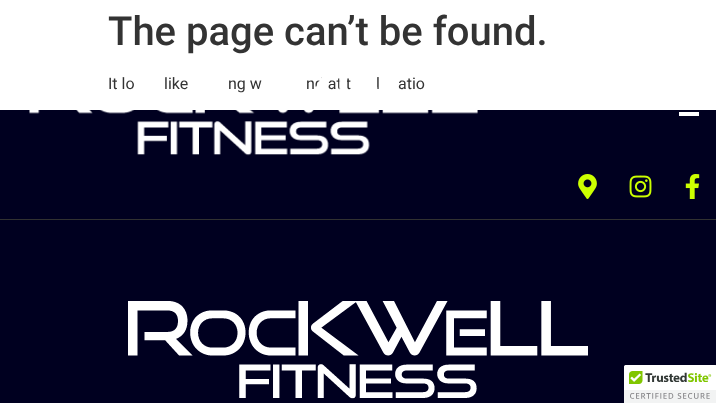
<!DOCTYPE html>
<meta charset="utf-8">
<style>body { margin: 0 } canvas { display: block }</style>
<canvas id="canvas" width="716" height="403"></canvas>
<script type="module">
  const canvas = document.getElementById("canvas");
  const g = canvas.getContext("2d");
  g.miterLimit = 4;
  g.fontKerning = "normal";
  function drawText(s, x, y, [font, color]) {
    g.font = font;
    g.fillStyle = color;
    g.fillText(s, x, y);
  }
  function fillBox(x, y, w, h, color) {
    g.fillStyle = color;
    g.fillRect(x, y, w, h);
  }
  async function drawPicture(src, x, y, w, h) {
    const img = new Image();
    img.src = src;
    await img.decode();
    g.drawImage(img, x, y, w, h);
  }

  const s1 = ["500 40px Roboto", "#333333"];
  const s2 = ["16px Roboto", "#333333"];

  fillBox(0, 0, 716, 403, "#FFFFFF");
  drawText("The page can’t be found.", 108, 45, s1);
  drawText("It lo", 108, 89, s2);
  drawText("like", 164, 89, s2);
  drawText("ng w", 228, 89, s2);
  drawText("nd at t", 306, 89, s2);
  drawText("l", 376, 89, s2);
  drawText("atio", 398, 89, s2);
  fillBox(0, 110, 716, 293, "#000020");
  await drawPicture("pic1.png", 29, 76, 449, 80);
  fillBox(679, 112, 20, 4, "#FFFFFF");
  fillBox(0, 219, 716, 1, "#313131");
  await drawPicture("pic2.png", 578, 174, 19, 25);
  await drawPicture("pic3.png", 629, 175, 23, 23);
  await drawPicture("pic4.png", 685, 174, 15, 25);
  await drawPicture("pic5.png", 128, 301, 460, 98);
  g.fillStyle = "#FFFFFF";
  g.beginPath();
  g.roundRect(624, 365, 92, 38, [2, 0, 0, 0]);
  g.fill();
  await drawPicture("pic6.png", 624, 365, 92, 38);
</script>
